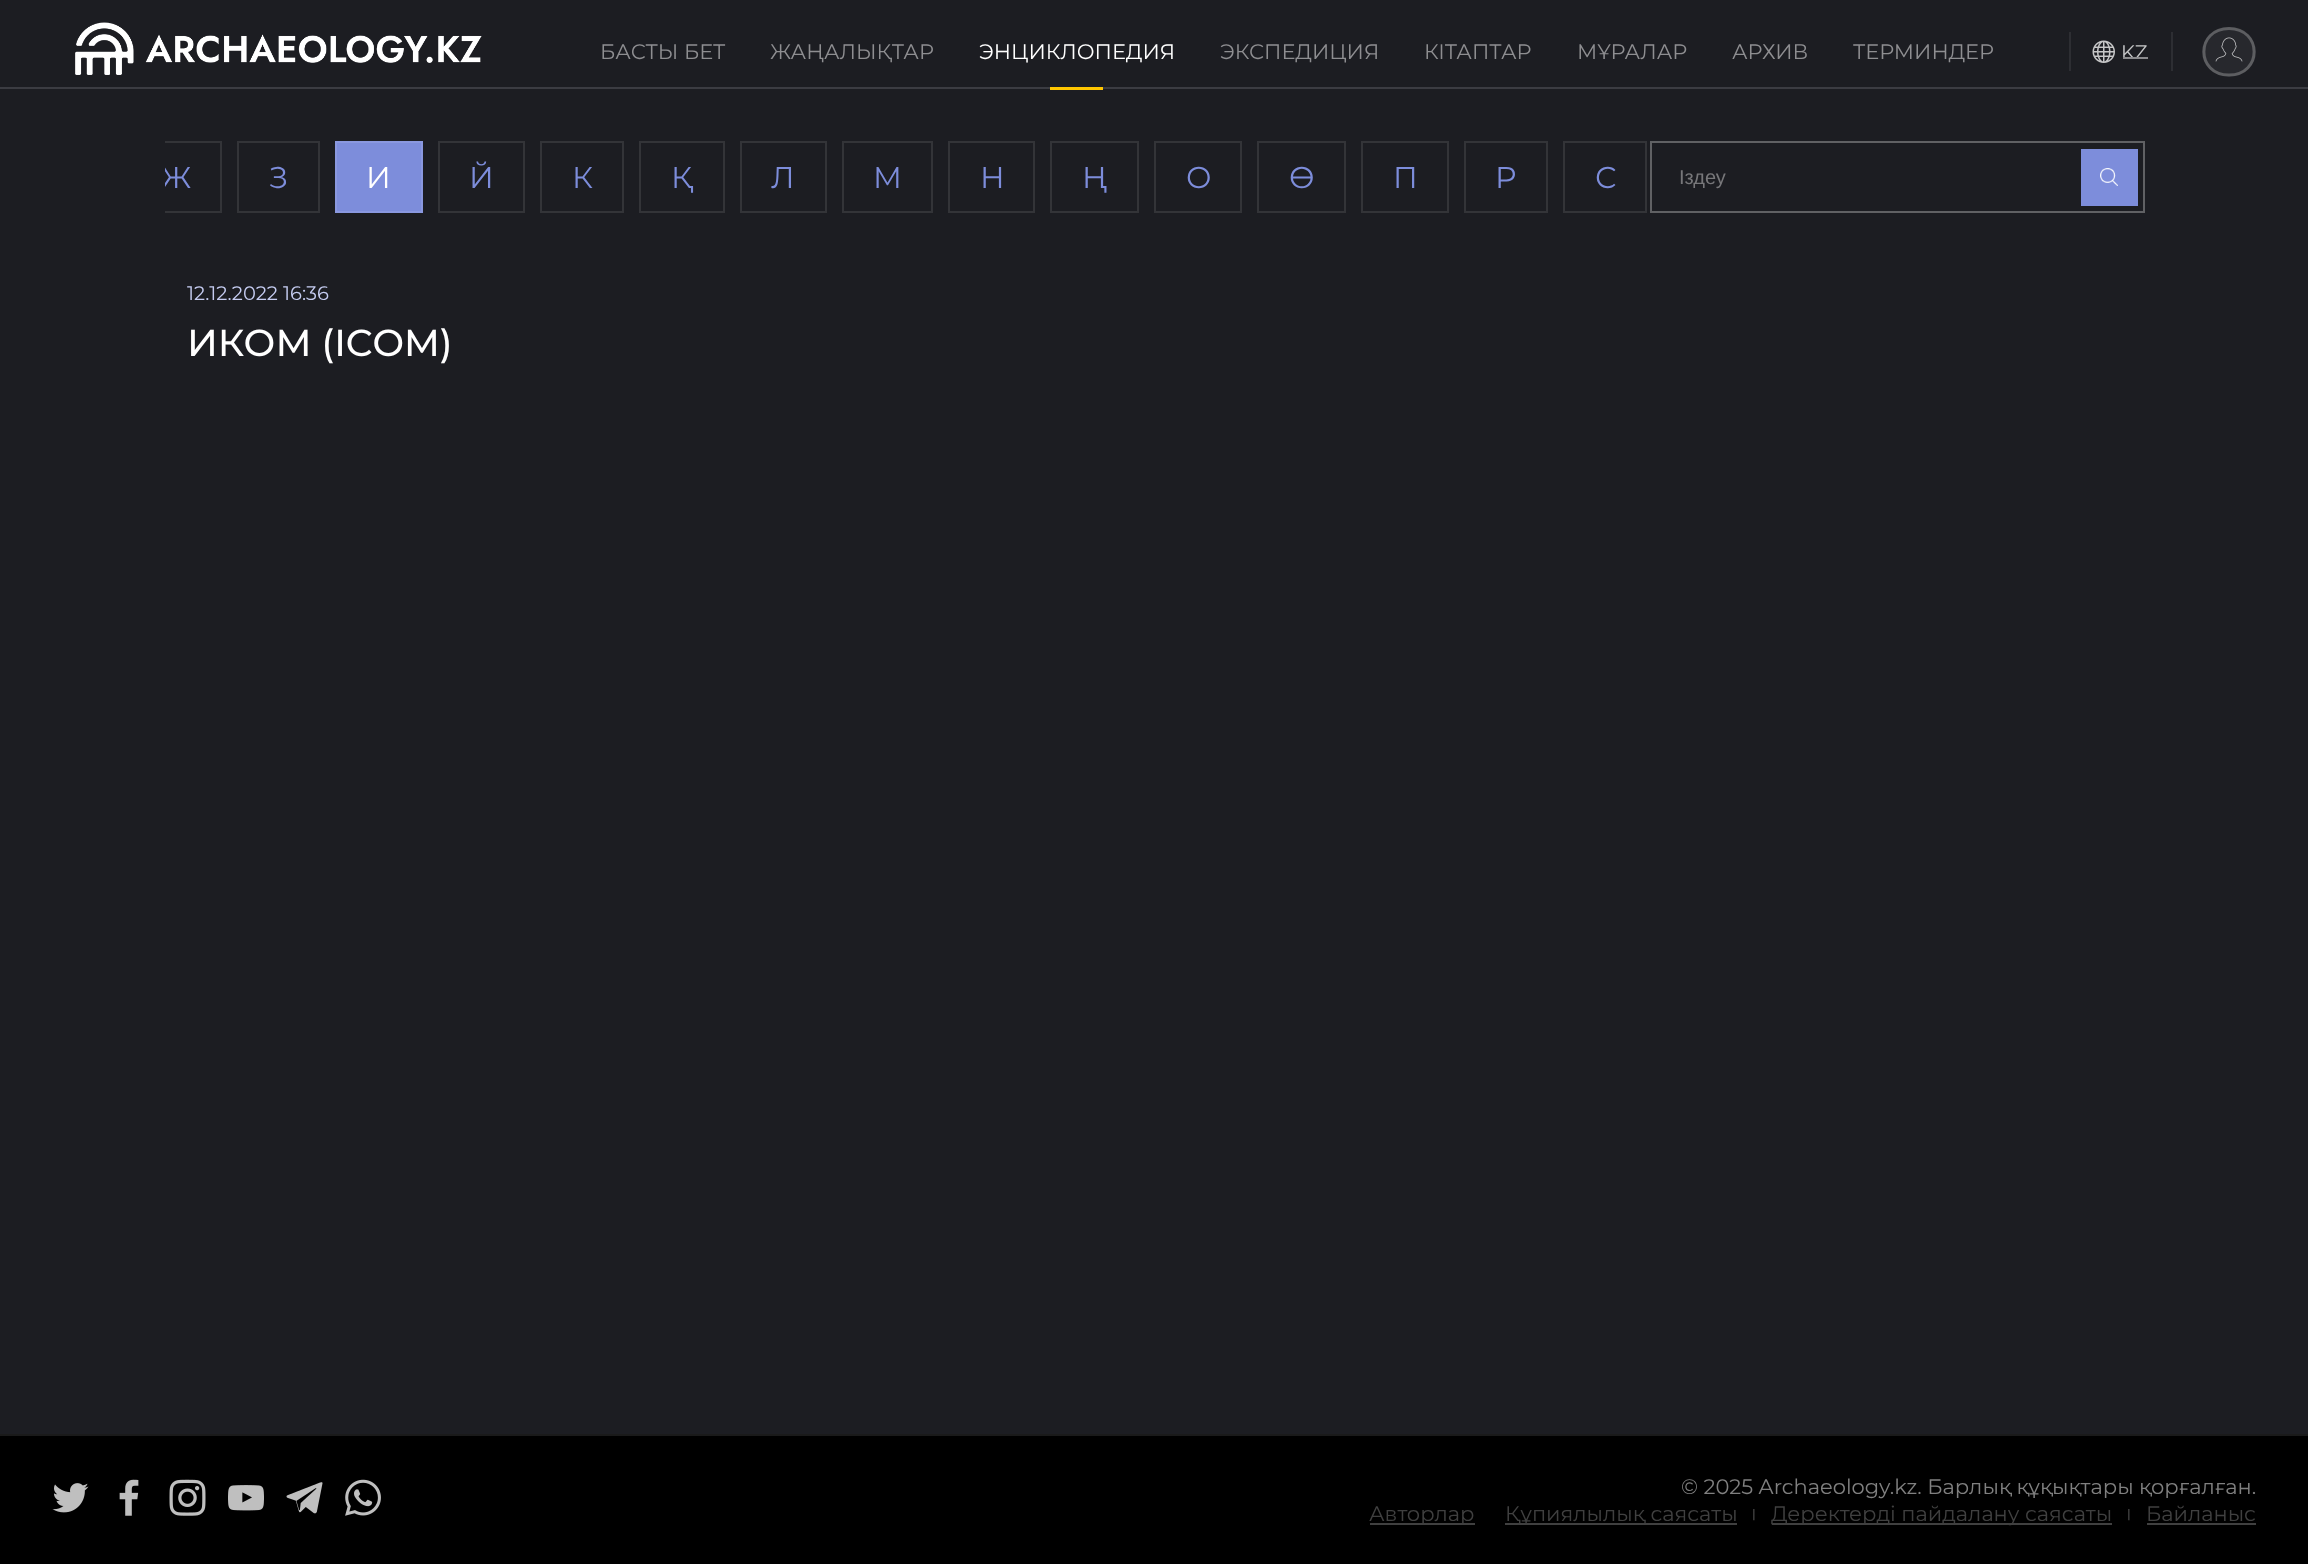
<!DOCTYPE html>
<meta charset="utf-8">
<style>body { margin: 0 } canvas { display: block }</style>
<canvas id="canvas" width="2308" height="1564"></canvas>
<script type="module">
  const canvas = document.getElementById("canvas");
  const g = canvas.getContext("2d");
  g.miterLimit = 4;
  g.fontKerning = "normal";
  function drawText(s, x, y, [font, color]) {
    g.font = font;
    g.fillStyle = color;
    g.fillText(s, x, y);
  }
  function fillBox(x, y, w, h, color) {
    g.fillStyle = color;
    g.fillRect(x, y, w, h);
  }
  async function drawPicture(src, x, y, w, h) {
    const img = new Image();
    img.src = src;
    await img.decode();
    g.drawImage(img, x, y, w, h);
  }

  const s1 = ["21px Montserrat", "#8E8E91"];
  const s2 = ["21px Montserrat", "#FFFFFF"];
  const s3 = ["19.5px Montserrat", "#C6C7C8"];
  const s4 = ["30px Montserrat", "#7D8DDB"];
  const s5 = ["30px Montserrat", "#FFFFFF"];
  const s6 = ["20px Liberation Sans", "#77777A"];
  const s7 = ["19.5px Montserrat", "#C5CCF1"];
  const s8 = ["500 37.5px Montserrat", "#FFFFFF"];
  const s9 = ["21px Montserrat", "#808080"];
  const s10 = ["21px Montserrat", "#404040"];
  const s11 = ["600 12px Montserrat", "#404040"];

  fillBox(0, 0, 2308, 1564, "#1C1D22");
  fillBox(0, 87, 2308, 2, "#3B3C42");
  await drawPicture("pic1.png", 75, 22, 407, 53);
  drawText("БАСТЫ БЕТ", 600, 59, s1);
  drawText("ЖАҢАЛЫҚТАР", 770, 59, s1);
  drawText("ЭНЦИКЛОПЕДИЯ", 979, 59, s2);
  fillBox(1050, 87, 53, 3, "#FFC600");
  drawText("ЭКСПЕДИЦИЯ", 1220, 59, s1);
  drawText("КІТАПТАР", 1424, 59, s1);
  drawText("МҰРАЛАР", 1577, 59, s1);
  drawText("АРХИВ", 1732, 59, s1);
  drawText("ТЕРМИНДЕР", 1853, 59, s1);
  fillBox(2171, 32, 2, 39, "#2D2E33");
  fillBox(2069, 32, 2, 39, "#2D2E33");
  await drawPicture("pic2.png", 2092, 40, 23, 23);
  drawText("KZ", 2121, 59, s3);
  fillBox(2123, 57, 25, 2, "#8B8B8E");
  g.fillStyle = "#27282D";
  g.beginPath();
  g.ellipse(2229, 52, 27, 25, 0, 0, Math.PI * 2);
  g.fill();
  g.beginPath();
  g.moveTo(2229, 28.5);
  g.bezierCurveTo(2262.5, 28.5, 2262.5, 75, 2229, 75);
  g.bezierCurveTo(2195.5, 75, 2195.5, 28.5, 2229, 28.5);
  g.closePath();
  g.strokeStyle = "rgba(255, 255, 255, 0.25)";
  g.lineWidth = 3;
  g.stroke();
  await drawPicture("pic3.png", 2215, 37, 28, 25);
  g.save();
  g.beginPath();
  g.rect(165, 141, 1485, 72);
  g.clip();
  g.strokeStyle = "#333438";
  g.lineWidth = 2;
  g.strokeRect(130, 142, 91, 70);
  drawText("Ж", 161, 188, s4);
  g.restore();
  g.strokeStyle = "#333438";
  g.lineWidth = 2;
  g.strokeRect(238, 142, 81, 70);
  drawText("З", 269, 188, s4);
  g.beginPath();
  g.rect(336, 142, 86, 70);
  g.fill();
  g.strokeStyle = "#8A98DF";
  g.stroke();
  drawText("И", 366, 188, s5);
  g.strokeStyle = "#333438";
  g.strokeRect(439, 142, 85, 70);
  drawText("Й", 469, 188, s4);
  g.strokeRect(541, 142, 82, 70);
  drawText("К", 572, 188, s4);
  g.strokeRect(640, 142, 84, 70);
  drawText("Қ", 671, 188, s4);
  g.strokeRect(741, 142, 85, 70);
  drawText("Л", 771, 188, s4);
  g.strokeRect(843, 142, 89, 70);
  drawText("М", 873, 188, s4);
  g.strokeRect(949, 142, 85, 70);
  drawText("Н", 980, 188, s4);
  g.strokeRect(1051, 142, 87, 70);
  drawText("Ң", 1082, 188, s4);
  g.strokeRect(1155, 142, 86, 70);
  drawText("О", 1186, 188, s4);
  g.strokeRect(1258, 142, 87, 70);
  drawText("Ө", 1289, 188, s4);
  g.strokeRect(1362, 142, 86, 70);
  drawText("П", 1393, 188, s4);
  g.strokeRect(1465, 142, 82, 70);
  drawText("Р", 1495, 188, s4);
  g.strokeRect(1564, 142, 82, 70);
  drawText("С", 1595, 188, s4);
  g.strokeStyle = "#606164";
  g.strokeRect(1651, 142, 493, 70);
  drawText("Іздеу", 1679, 184, s6);
  fillBox(2081, 149, 57, 57, "#7D8DDB");
  await drawPicture("pic4.png", 2100, 168, 18, 18);
  drawText("12.12.2022 16:36", 187, 300, s7);
  drawText("ИКОМ (ICOM)", 187, 356, s8);
  fillBox(0, 1436, 2308, 128, "#000000");
  fillBox(0, 1434, 2308, 2, "#1A1A1A");
  await drawPicture("pic5.png", 52, 1483, 37, 30);
  await drawPicture("pic6.png", 119, 1479, 20, 37);
  await drawPicture("pic7.png", 169, 1479, 37, 37);
  await drawPicture("pic8.png", 228, 1485, 36, 26);
  await drawPicture("pic9.png", 286, 1482, 37, 32);
  await drawPicture("pic10.png", 345, 1479, 36, 37);
  drawText("© 2025 Archaeology.kz. Барлық құқықтары қорғалған.", 1681, 1494, s9);
  fillBox(1370, 1523, 105, 2, "#404040");
  drawText("Авторлар", 1369, 1521, s10);
  fillBox(1505, 1523, 232, 2, "#404040");
  drawText("Құпиялылық саясаты", 1505, 1521, s10);
  drawText("|", 1752, 1518, s11);
  fillBox(1772, 1523, 340, 2, "#404040");
  drawText("Деректерді пайдалану саясаты", 1771, 1521, s10);
  drawText("|", 2127, 1518, s11);
  drawText("Байланыс", 2146, 1521, s10);
  fillBox(2147, 1523, 109, 2, "#404040");
</script>
